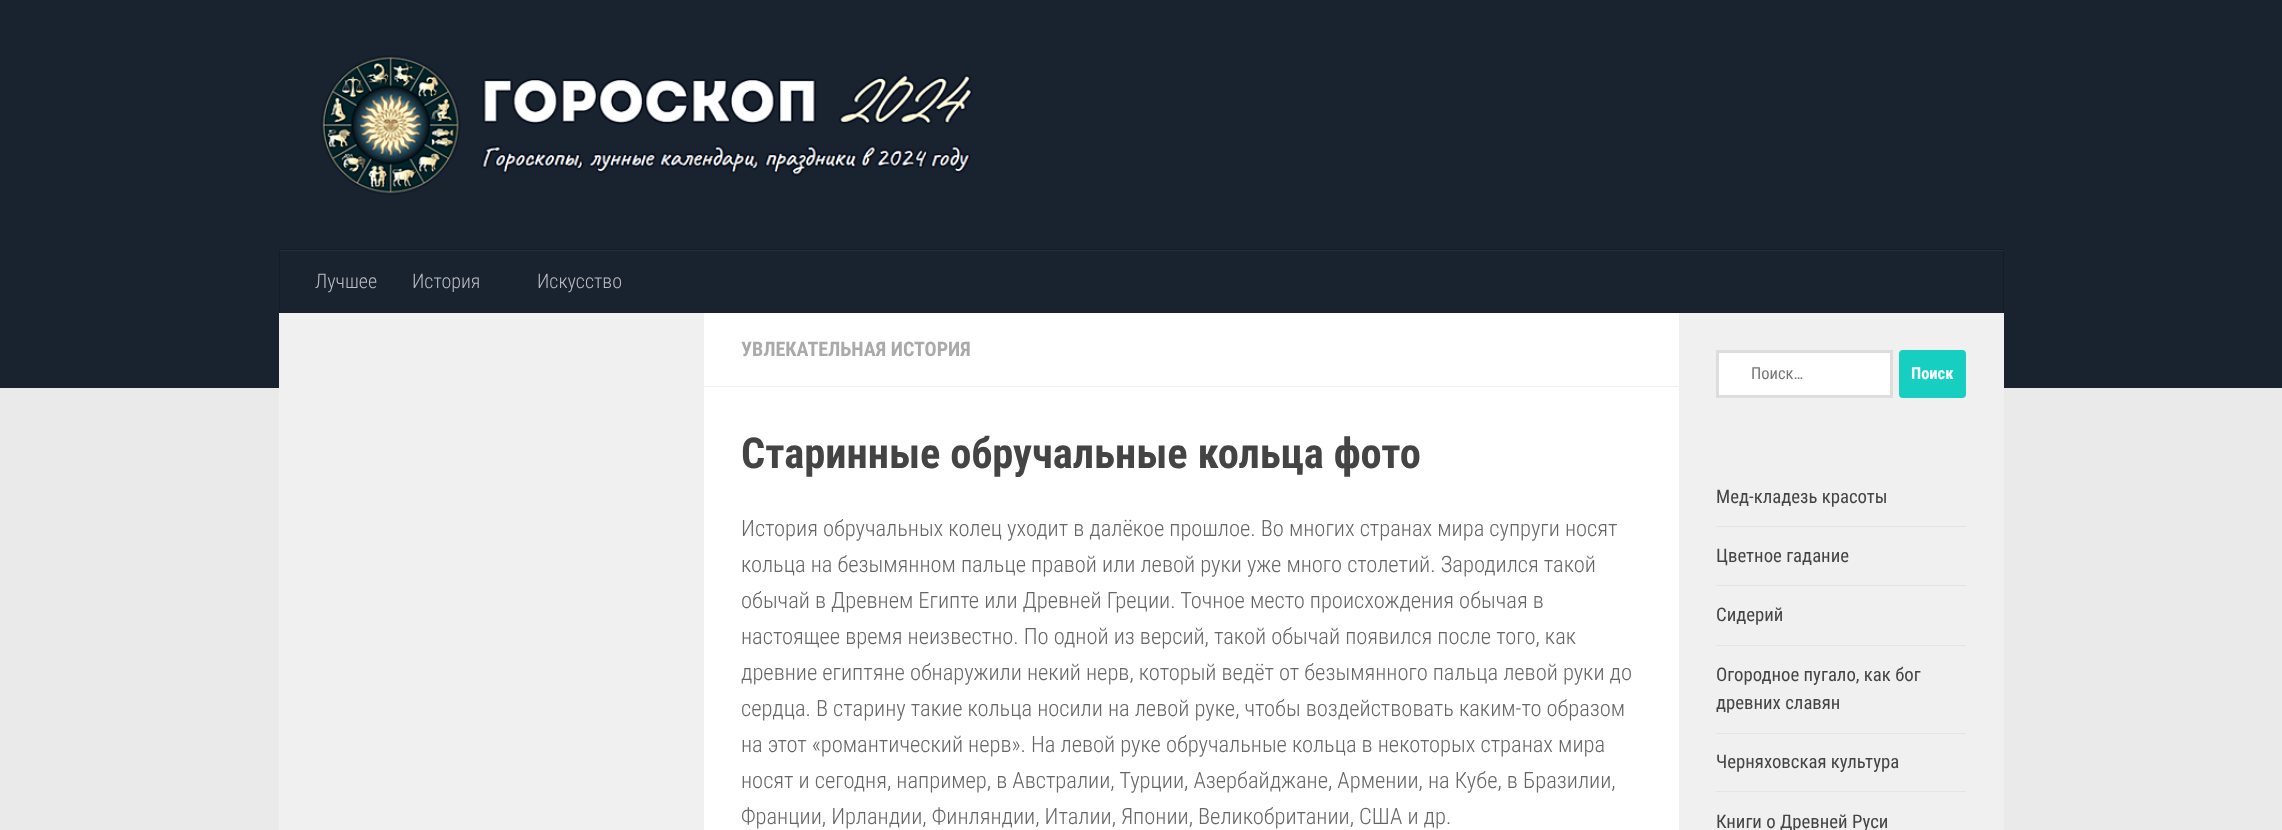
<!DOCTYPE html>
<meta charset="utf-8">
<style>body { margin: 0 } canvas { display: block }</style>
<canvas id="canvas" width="2282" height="830"></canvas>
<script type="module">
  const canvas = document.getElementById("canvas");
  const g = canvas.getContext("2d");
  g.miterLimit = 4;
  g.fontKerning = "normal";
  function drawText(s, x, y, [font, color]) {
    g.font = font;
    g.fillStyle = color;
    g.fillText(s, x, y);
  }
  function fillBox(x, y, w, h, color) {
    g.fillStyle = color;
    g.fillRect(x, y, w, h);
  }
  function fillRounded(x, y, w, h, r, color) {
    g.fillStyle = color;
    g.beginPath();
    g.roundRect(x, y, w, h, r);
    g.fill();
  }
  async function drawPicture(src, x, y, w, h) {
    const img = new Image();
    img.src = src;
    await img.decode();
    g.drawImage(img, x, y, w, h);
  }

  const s1 = ["300 20px Roboto Condensed", "#BABDC1"];
  const s2 = ["bold 20px Roboto Condensed", "#AAAAAA"];
  const s3 = ["bold 42.5px Roboto Condensed", "#444444"];
  const s4 = ["300 22.5px Roboto Condensed", "#666666"];
  const s5 = ["16.5px Roboto Condensed", "#757575"];
  const s6 = ["bold 16.5px Roboto Condensed", "#FFFFFF"];
  const s7 = ["18.75px Roboto Condensed", "#444444"];

  fillBox(0, 0, 2282, 830, "#EAEAEA");
  fillBox(0, 0, 2282, 388, "#19222F");
  fillBox(279, 250, 1725, 1, "#252D39");
  await drawPicture("pic1.png", 321, 55, 652, 140);
  g.fillStyle = "#141B26";
  g.beginPath();
  g.moveTo(279, 249);
  g.lineTo(279, 250);
  g.lineTo(2004, 250);
  g.lineTo(2004, 311);
  g.lineTo(2004, 249);
  g.closePath();
  g.fill();
  fillBox(2003, 250, 1, 63, "#141B26");
  fillBox(2003, 250, 1, 1, "#202631");
  fillBox(279, 250, 1, 63, "#141B26");
  fillBox(279, 250, 1, 1, "#202631");
  drawText("Лучшее", 315, 288, s1);
  drawText("История", 412, 288, s1);
  drawText("Искусство", 537, 288, s1);
  fillBox(704, 313, 975, 517, "#FFFFFF");
  fillBox(279, 313, 425, 517, "#F0F0F0");
  fillBox(1679, 313, 325, 517, "#F0F0F0");
  fillBox(704, 386, 975, 1, "#EEEEEE");
  drawText("УВЛЕКАТЕЛЬНАЯ ИСТОРИЯ", 741, 356, s2);
  drawText("Старинные обручальные кольца фото", 741, 468, s3);
  drawText("История обручальных колец уходит в далёкое прошлое. Во многих странах мира супруги носят", 741, 536, s4);
  drawText("кольца на безымянном пальце правой или левой руки уже много столетий. Зародился такой", 741, 572, s4);
  drawText("обычай в Древнем Египте или Древней Греции. Точное место происхождения обычая в", 741, 608, s4);
  drawText("настоящее время неизвестно. По одной из версий, такой обычай появился после того, как", 741, 644, s4);
  drawText("древние египтяне обнаружили некий нерв, который ведёт от безымянного пальца левой руки до", 741, 680, s4);
  drawText("сердца. В старину такие кольца носили на левой руке, чтобы воздействовать каким-то образом", 741, 716, s4);
  drawText("на этот «романтический нерв». На левой руке обручальные кольца в некоторых странах мира", 741, 752, s4);
  drawText("носят и сегодня, например, в Австралии, Турции, Азербайджане, Армении, на Кубе, в Бразилии,", 741, 788, s4);
  drawText("Франции, Ирландии, Финляндии, Италии, Японии, Великобритании, США и др.", 741, 824, s4);
  g.fillStyle = "#FFFFFF";
  g.beginPath();
  g.rect(1717.5, 351.5, 174, 45);
  g.fill();
  g.strokeStyle = "#DDDDDD";
  g.lineWidth = 3;
  g.stroke();
  drawText("Поиск…", 1751, 379, s5);
  fillRounded(1899, 350, 67, 48, 4, "#16CFC1");
  drawText("Поиск", 1911, 379, s6);
  fillBox(1716, 526, 250, 1, "#E4E4E4");
  drawText("Мед-кладезь красоты", 1716, 503, s7);
  fillBox(1716, 585, 250, 1, "#E4E4E4");
  drawText("Цветное гадание", 1716, 562, s7);
  fillBox(1716, 645, 250, 1, "#E4E4E4");
  drawText("Сидерий", 1716, 621, s7);
  fillBox(1716, 733, 250, 1, "#E4E4E4");
  drawText("Огородное пугало, как бог", 1716, 681, s7);
  drawText("древних славян", 1716, 709, s7);
  fillBox(1716, 791, 250, 1, "#E4E4E4");
  drawText("Черняховская культура", 1716, 768, s7);
  drawText("Книги о Древней Руси", 1716, 828, s7);
</script>
